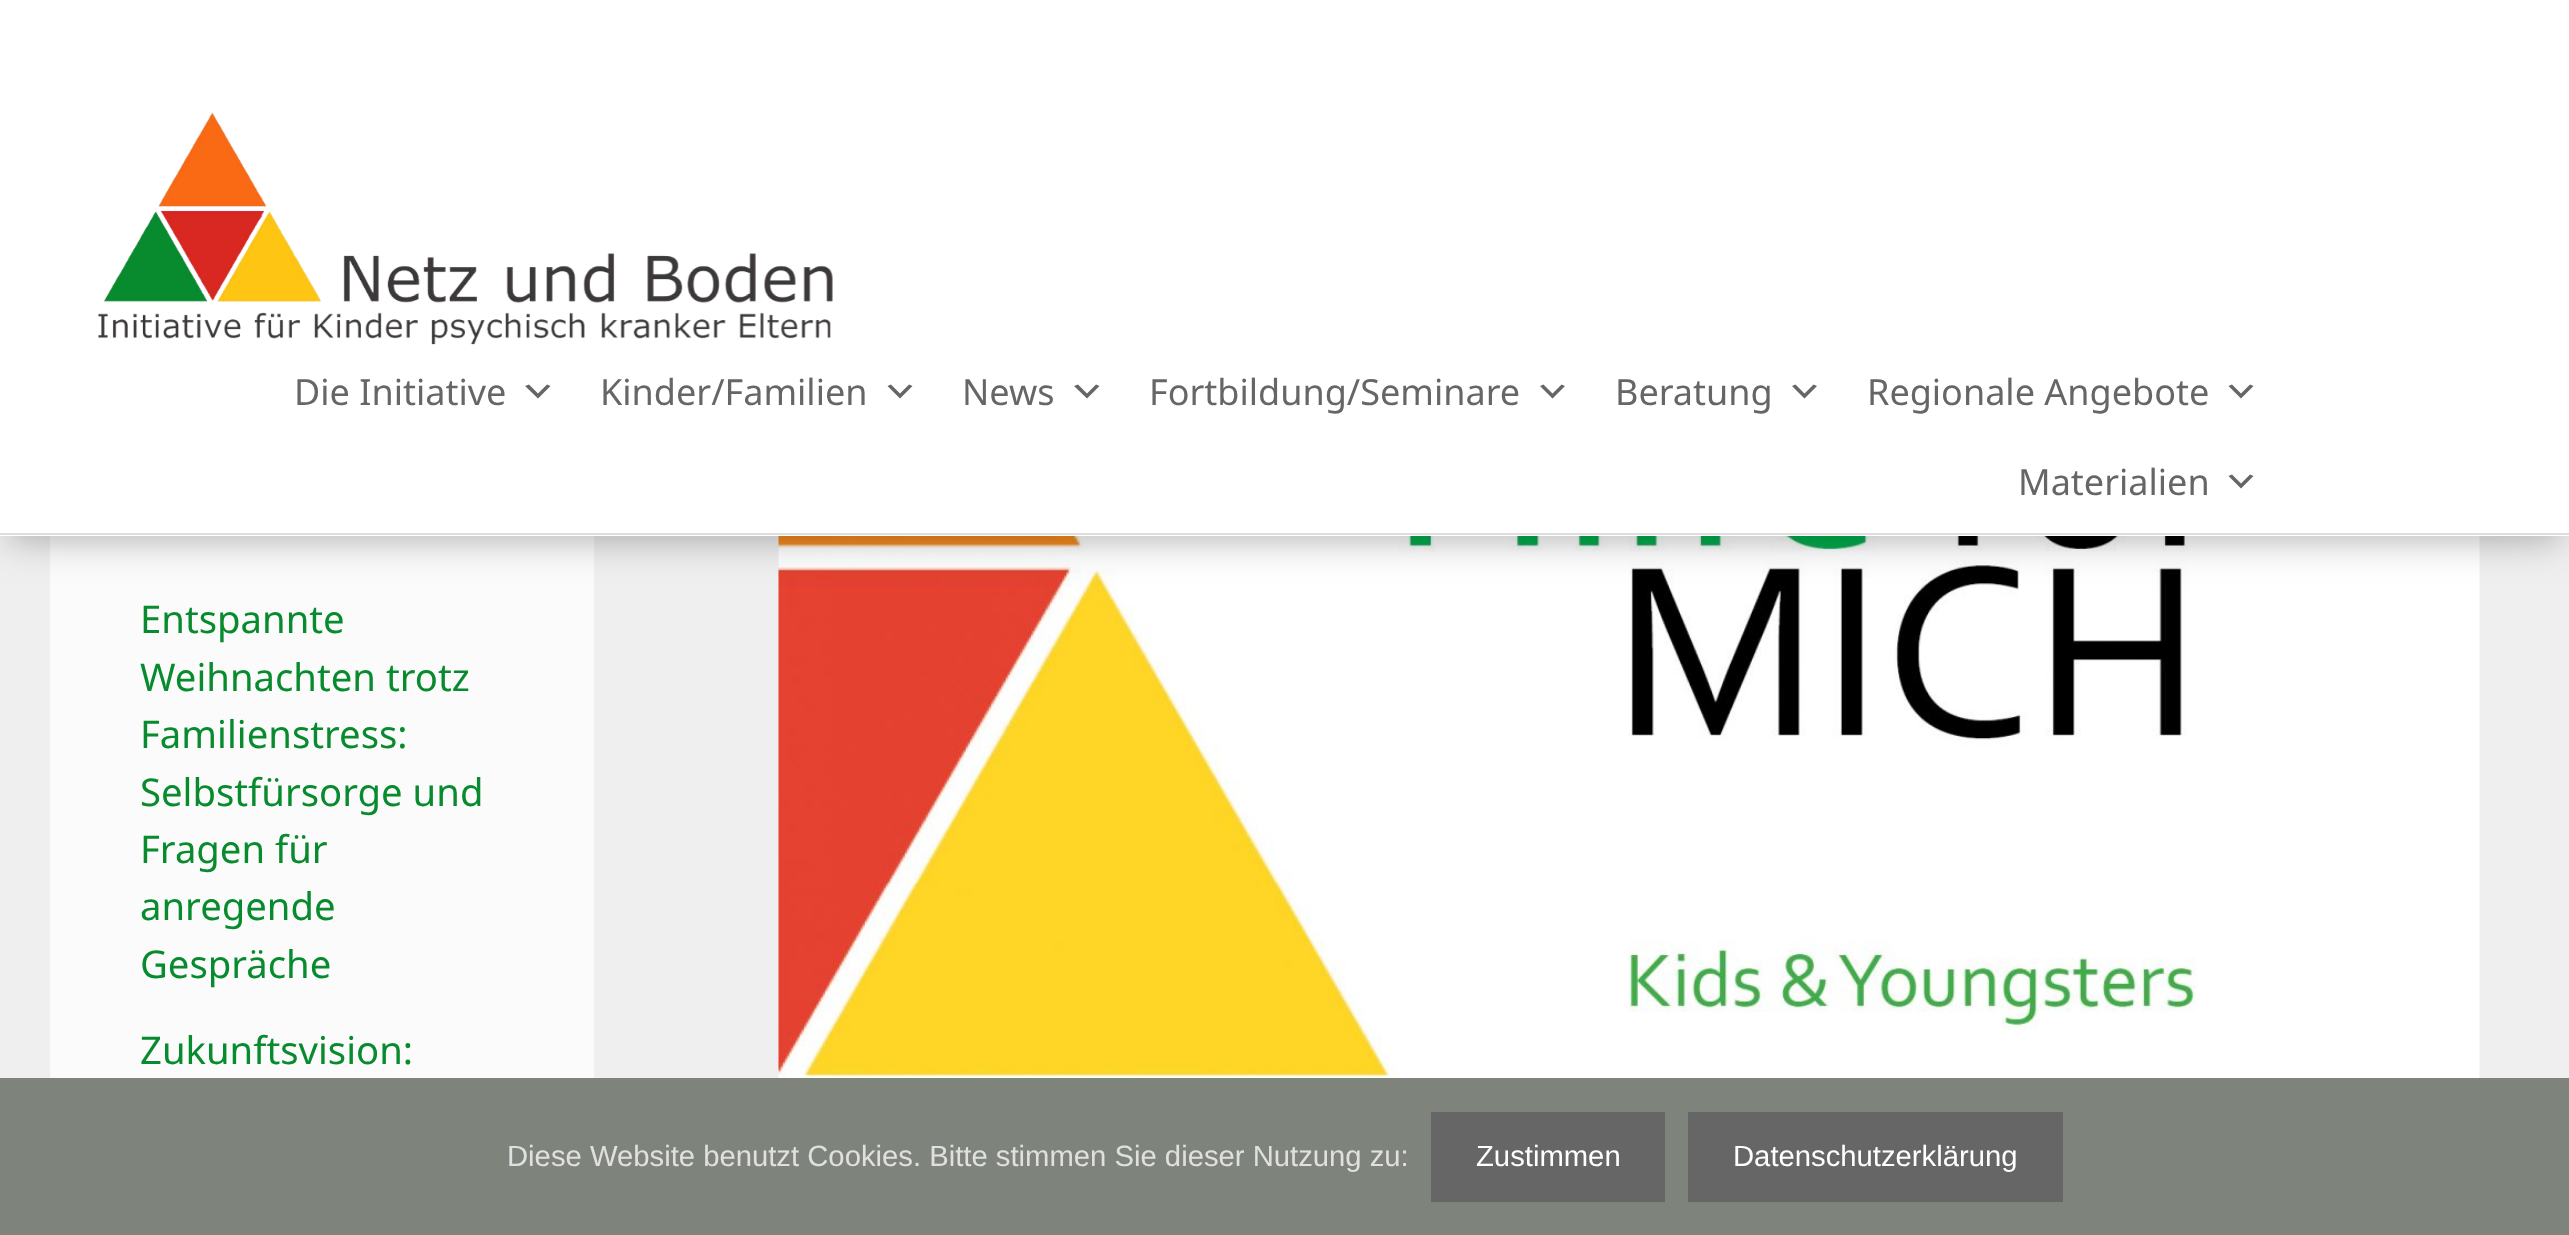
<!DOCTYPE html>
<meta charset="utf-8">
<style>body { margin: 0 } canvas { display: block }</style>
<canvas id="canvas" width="2569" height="1235"></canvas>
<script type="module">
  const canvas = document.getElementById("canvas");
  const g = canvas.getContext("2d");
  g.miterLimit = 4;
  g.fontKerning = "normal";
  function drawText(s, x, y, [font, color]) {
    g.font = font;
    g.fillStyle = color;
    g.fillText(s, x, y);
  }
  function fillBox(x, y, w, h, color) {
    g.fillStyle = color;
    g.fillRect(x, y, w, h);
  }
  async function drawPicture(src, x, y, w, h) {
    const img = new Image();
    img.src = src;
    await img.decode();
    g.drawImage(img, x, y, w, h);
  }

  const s1 = ["36px Noto Sans", "#666666"];
  const s2 = ["38.25px Noto Sans", "#088B2E"];
  const s3 = ["29.25px Liberation Sans", "#E0E0E0"];
  const s4 = ["29.25px Liberation Sans", "#FFFFFF"];

  fillBox(0, 0, 2569, 1235, "#EFEFEF");
  fillBox(50, 536, 544, 542, "#FBFBFB");
  await drawPicture("pic2.png", 778, 536, 1702, 542);
  g.fillStyle = "rgba(0, 0, 0, 0.09)";
  g.filter = "blur(11px)";
  g.beginPath();
  g.rect(11, 29, 2547, 513);
  g.fill();
  g.filter = "none";
  g.fillStyle = "rgba(0, 0, 0, 0.12)";
  g.filter = "blur(22.5px)";
  g.beginPath();
  g.rect(0, 7, 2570, 535);
  g.fill();
  g.filter = "none";
  g.fillStyle = "rgba(0, 0, 0, 0.1)";
  g.filter = "blur(22.5px)";
  g.beginPath();
  g.rect(27, 50, 2516, 481);
  g.fill();
  g.filter = "none";
  fillBox(0, 0, 2569, 536, "#FFFFFF");
  fillBox(0, 533, 2569, 2, "#DDDDDD");
  await drawPicture("pic1.png", 98, 112, 735, 233);
  drawText("Die Initiative", 294, 405, s1);
  g.beginPath();
  g.moveTo(529, 384.5);
  g.lineTo(538, 393.5);
  g.lineTo(547, 384.5);
  g.lineTo(550.5, 386);
  g.lineTo(538, 398.5);
  g.lineTo(525, 386);
  g.closePath();
  g.fill();
  drawText("Kinder/Familien", 600, 405, s1);
  g.beginPath();
  g.moveTo(891, 384.5);
  g.lineTo(900, 393.5);
  g.lineTo(909, 384.5);
  g.lineTo(912.5, 386);
  g.lineTo(900, 398.5);
  g.lineTo(887.5, 386);
  g.closePath();
  g.fill();
  drawText("News", 962, 405, s1);
  g.beginPath();
  g.moveTo(1078, 384.5);
  g.lineTo(1087, 393.5);
  g.lineTo(1096, 384.5);
  g.lineTo(1099.5, 386);
  g.lineTo(1087, 398.5);
  g.lineTo(1074, 386);
  g.closePath();
  g.fill();
  drawText("Fortbildung/Seminare", 1149, 405, s1);
  g.beginPath();
  g.moveTo(1543.5, 384.5);
  g.lineTo(1552.5, 393.5);
  g.lineTo(1561.5, 384.5);
  g.lineTo(1565, 386);
  g.lineTo(1552.5, 398.5);
  g.lineTo(1540, 386);
  g.closePath();
  g.fill();
  drawText("Beratung", 1615, 405, s1);
  g.beginPath();
  g.moveTo(1795.5, 384.5);
  g.lineTo(1804.5, 393.5);
  g.lineTo(1813.5, 384.5);
  g.lineTo(1817, 386);
  g.lineTo(1804.5, 398.5);
  g.lineTo(1792, 386);
  g.closePath();
  g.fill();
  drawText("Regionale Angebote", 1867, 405, s1);
  g.beginPath();
  g.moveTo(2232, 384.5);
  g.lineTo(2241, 393.5);
  g.lineTo(2250, 384.5);
  g.lineTo(2253.5, 386);
  g.lineTo(2241, 398.5);
  g.lineTo(2228.5, 386);
  g.closePath();
  g.fill();
  drawText("Materialien", 2018, 495, s1);
  g.beginPath();
  g.moveTo(2232, 474.5);
  g.lineTo(2241, 483.5);
  g.lineTo(2250, 474.5);
  g.lineTo(2253.5, 476);
  g.lineTo(2241, 488.5);
  g.lineTo(2228.5, 476);
  g.closePath();
  g.fill();
  drawText("Entspannte", 140, 633, s2);
  drawText("Weihnachten trotz", 140, 691, s2);
  drawText("Familienstress:", 140, 748, s2);
  drawText("Selbstfürsorge und", 140, 806, s2);
  drawText("Fragen für", 140, 863, s2);
  drawText("anregende", 140, 920, s2);
  drawText("Gespräche", 140, 978, s2);
  drawText("Zukunftsvision:", 140, 1064, s2);
  fillBox(0, 1078, 2569, 157, "#7E847C");
  drawText("Diese Website benutzt Cookies. Bitte stimmen Sie dieser Nutzung zu:", 507, 1166, s3);
  fillBox(1431, 1112, 234, 90, "#666666");
  drawText("Zustimmen", 1476, 1166, s4);
  fillBox(1688, 1112, 375, 90, "#666666");
  drawText("Datenschutzerklärung", 1733, 1166, s4);
</script>
